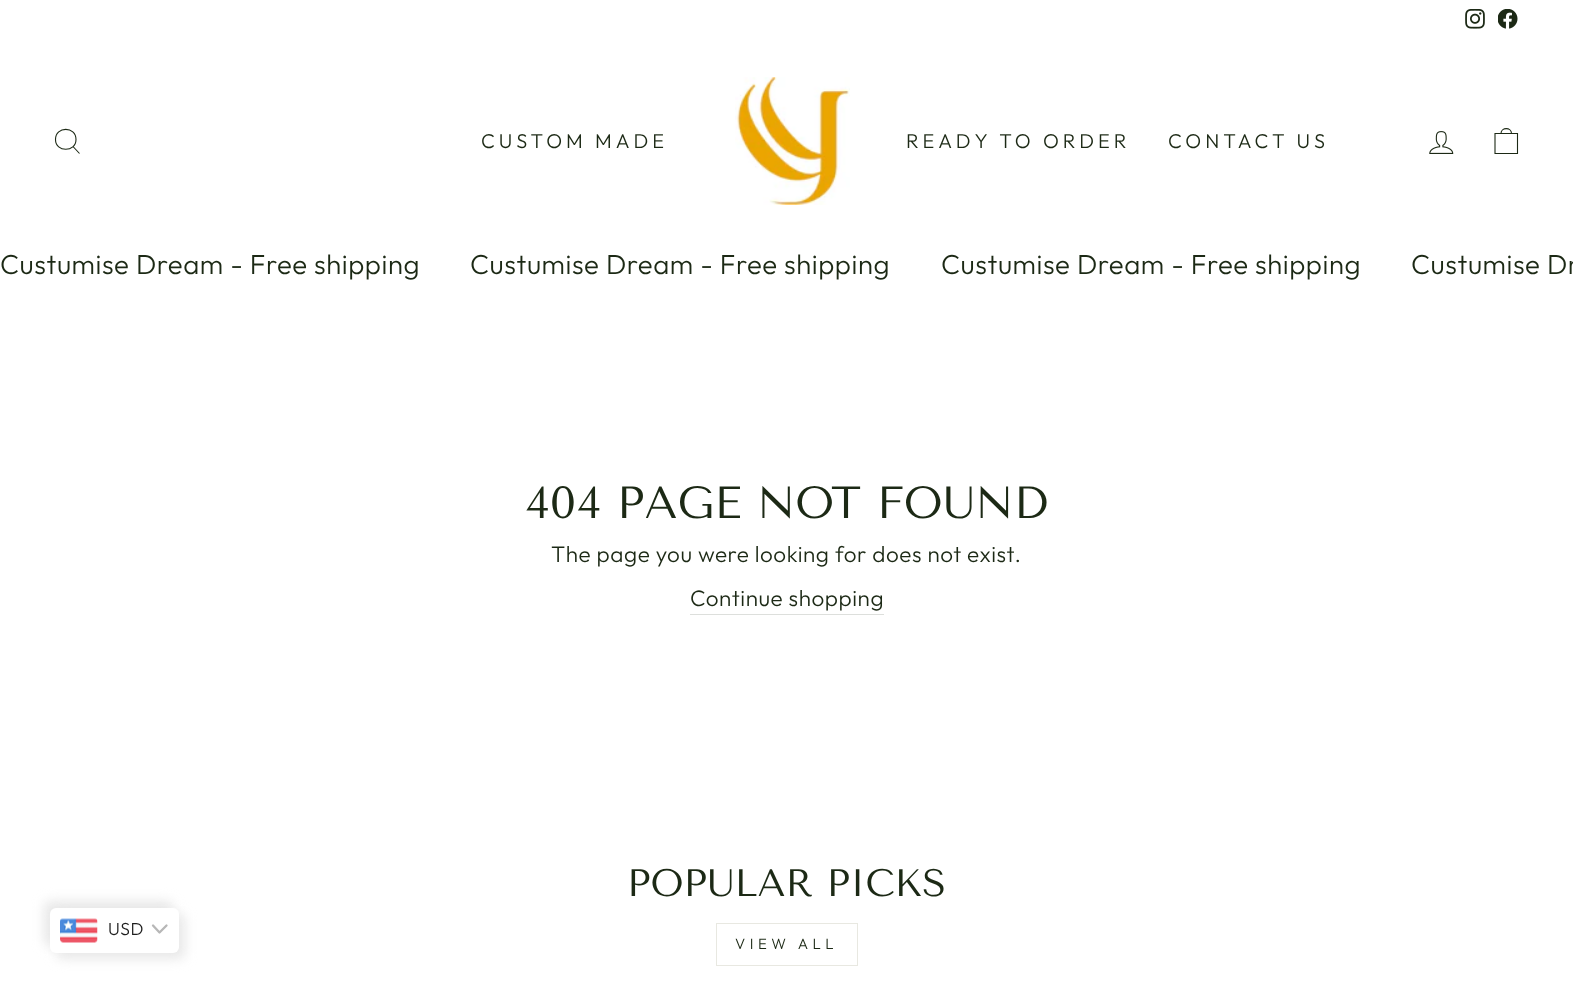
<!DOCTYPE html>
<meta charset="utf-8">
<style>body { margin: 0 } canvas { display: block }</style>
<canvas id="canvas" width="1573" height="1005"></canvas>
<script type="module">
  const canvas = document.getElementById("canvas");
  const g = canvas.getContext("2d");
  g.miterLimit = 4;
  g.fontKerning = "normal";
  function drawText(s, x, y, [font, color]) {
    g.font = font;
    g.fillStyle = color;
    g.fillText(s, x, y);
  }
  function fillBox(x, y, w, h, color) {
    g.fillStyle = color;
    g.fillRect(x, y, w, h);
  }
  function fillRounded(x, y, w, h, r, color) {
    g.fillStyle = color;
    g.beginPath();
    g.roundRect(x, y, w, h, r);
    g.fill();
  }
  async function drawPicture(src, x, y, w, h) {
    const img = new Image();
    img.src = src;
    await img.decode();
    g.drawImage(img, x, y, w, h);
  }

  const s1 = ["300 20px Outfit", "#1C2915"];
  const s2 = ["300 27.5px Outfit", "#1C2915"];
  const s3 = ["45px Tenor Sans", "#1C2915"];
  const s4 = ["300 22.5px Outfit", "#1C2915"];
  const s5 = ["38.25px Tenor Sans", "#1C2915"];
  const s6 = ["300 15px Outfit", "#1C2915"];
  const s7 = ["300 17.5px Outfit", "#1E1E1E"];

  fillBox(0, 0, 1573, 1005, "#FFFFFF");
  await drawPicture("pic1.png", 1465, 9, 20, 20);
  await drawPicture("pic2.png", 1498, 9, 20, 20);
  g.fillStyle = "rgba(0, 0, 0, 0.2)";
  g.filter = "blur(0.5px)";
  g.beginPath();
  g.rect(0, 39, 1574, 204);
  g.fill();
  g.filter = "none";
  fillBox(0, 39, 1573, 204, "#FFFFFF");
  g.beginPath();
  g.moveTo(76, 139.5);
  g.bezierCurveTo(76, 152.5, 55.5, 152.5, 55.5, 139.5);
  g.bezierCurveTo(55.5, 126, 76, 126, 76, 139.5);
  g.closePath();
  g.moveTo(79.5, 153.5);
  g.lineTo(73, 146.5);
  g.strokeStyle = "#1C2915";
  g.lineWidth = 1.1;
  g.stroke();
  g.letterSpacing = "4px";
  drawText("CUSTOM MADE", 481, 148, s1);
  await drawPicture("pic3.png", 735, 77, 115, 128);
  drawText("READY TO ORDER", 906, 148, s1);
  drawText("CONTACT US", 1168, 148, s1);
  await drawPicture("pic4.png", 1429, 131, 25, 23);
  g.beginPath();
  g.moveTo(1495, 133.5);
  g.lineTo(1517.5, 133.5);
  g.lineTo(1517.5, 153.5);
  g.lineTo(1495, 153.5);
  g.closePath();
  g.moveTo(1501, 133.5);
  g.bezierCurveTo(1501, 127, 1511.5, 127, 1511.5, 133.5);
  g.stroke();
  g.letterSpacing = "0.55px";
  drawText("Custumise Dream - Free shipping", 0, 274, s2);
  drawText("Custumise Dream - Free shipping", 470, 274, s2);
  drawText("Custumise Dream - Free shipping", 941, 274, s2);
  drawText("Custumise Dr", 1411, 274, s2);
  g.letterSpacing = "0px";
  drawText("404 PAGE NOT FOUND", 525, 518, s3);
  g.letterSpacing = "0.55px";
  drawText("The page you were looking for does not exist.", 551, 562, s4);
  fillBox(690, 614, 194, 1, "#DDDFDC");
  drawText("Continue shopping", 690, 606, s4);
  g.letterSpacing = "0px";
  drawText("POPULAR PICKS", 627, 896, s5);
  g.strokeStyle = "#E8E8E1";
  g.lineWidth = 1;
  g.strokeRect(716.5, 923.5, 141, 42);
  g.letterSpacing = "4.5px";
  drawText("VIEW ALL", 735, 949, s6);
  g.fillStyle = "#E8E8E8";
  g.filter = "blur(6px)";
  g.beginPath();
  g.roundRect(44, 901, 129, 45, 6);
  g.fill();
  g.filter = "none";
  g.filter = "blur(6px)";
  g.beginPath();
  g.roundRect(56, 914, 129, 45, 6);
  g.fill();
  g.filter = "none";
  fillRounded(50, 908, 129, 45, 6, "#FFFFFF");
  await drawPicture("pic5.png", 60, 918, 38, 25);
  g.letterSpacing = "0.55px";
  drawText("USD", 108, 935, s7);
  g.beginPath();
  g.moveTo(153, 925.5);
  g.lineTo(159.5, 932.5);
  g.lineTo(166.5, 925.5);
  g.strokeStyle = "#B7B7B7";
  g.lineWidth = 2.3;
  g.lineCap = "round";
  g.lineJoin = "round";
  g.stroke();
</script>
